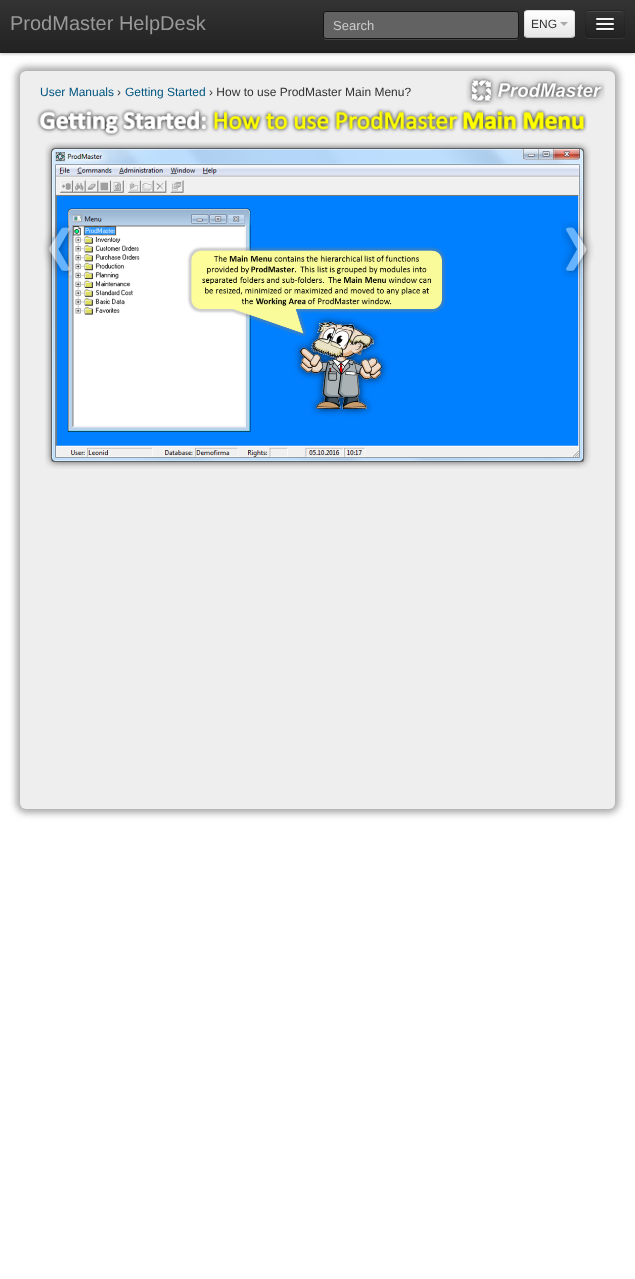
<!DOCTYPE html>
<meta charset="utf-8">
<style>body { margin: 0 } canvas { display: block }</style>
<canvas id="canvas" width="635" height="1279"></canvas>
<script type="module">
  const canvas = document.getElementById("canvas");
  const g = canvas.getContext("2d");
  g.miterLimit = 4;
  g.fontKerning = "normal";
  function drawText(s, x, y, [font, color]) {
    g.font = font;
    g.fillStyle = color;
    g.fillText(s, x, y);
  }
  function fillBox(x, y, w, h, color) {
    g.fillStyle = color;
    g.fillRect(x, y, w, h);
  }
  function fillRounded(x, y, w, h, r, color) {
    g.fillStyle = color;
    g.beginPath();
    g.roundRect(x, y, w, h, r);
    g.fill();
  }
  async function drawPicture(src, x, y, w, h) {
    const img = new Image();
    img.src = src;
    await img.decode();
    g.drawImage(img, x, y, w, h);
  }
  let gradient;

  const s1 = ["20px Liberation Sans", "#999999"];
  const s2 = ["13px Liberation Sans", "#CCCCCC"];
  const s3 = ["12px Liberation Sans", "#333333"];
  const s4 = ["12px Liberation Sans", "#005580"];

  fillBox(0, 0, 635, 1279, "#FFFFFF");
  g.fillStyle = "rgba(0, 0, 0, 0.25)";
  g.filter = "blur(1.5px)";
  g.beginPath();
  g.rect(0, 1, 635, 53);
  g.fill();
  g.filter = "none";
  gradient = g.createLinearGradient(318, 0, 318, 53);
  gradient.addColorStop(0, "#333333");
  gradient.addColorStop(1, "#222222");
  g.fillStyle = gradient;
  g.fillRect(0, 0, 635, 52);
  fillBox(0, 52, 635, 1, "#1F1F1F");
  drawText("ProdMaster HelpDesk", 10, 30, s1);
  g.fillStyle = "#474747";
  g.beginPath();
  g.moveTo(323, 36);
  g.bezierCurveTo(323, 38, 324, 40, 326, 40);
  g.lineTo(516, 40);
  g.bezierCurveTo(518, 40, 519, 38, 519, 36);
  g.bezierCurveTo(519, 38, 518, 39, 516, 39);
  g.lineTo(326, 39);
  g.bezierCurveTo(324, 39, 323, 38, 323, 36);
  g.closePath();
  g.fill();
  g.fillStyle = "#626262";
  g.beginPath();
  g.roundRect(323.5, 11.5, 195, 27, 2.5);
  g.fill();
  g.strokeStyle = "#151515";
  g.stroke();
  drawText("Search", 333, 30, s2);
  fillRounded(524, 10, 51, 28, 4, "#F5F5F5");
  g.save();
  g.beginPath();
  g.roundRect(524, 10, 51, 28, 4);
  g.clip();
  gradient = g.createLinearGradient(550, 11, 550, 37);
  gradient.addColorStop(0, "#FFFFFF");
  gradient.addColorStop(1, "#E6E6E6");
  g.fillStyle = gradient;
  g.fillRect(524, 11, 51, 26);
  g.restore();
  g.fillStyle = "#FFFFFF";
  g.beginPath();
  g.moveTo(528, 12);
  g.lineTo(571, 12);
  g.bezierCurveTo(573, 12, 574, 13, 574, 15);
  g.bezierCurveTo(574, 9, 568, 11, 564, 11);
  g.lineTo(535, 11);
  g.bezierCurveTo(531, 11, 525, 9, 525, 15);
  g.bezierCurveTo(525, 13, 526, 12, 528, 12);
  g.closePath();
  g.fill();
  g.fillStyle = "rgba(255, 255, 255, 0.12)";
  g.beginPath();
  g.moveTo(528, 11);
  g.bezierCurveTo(526.5, 11, 525, 12.5, 525, 14);
  g.lineTo(525, 34);
  g.bezierCurveTo(525, 35.5, 526.5, 37, 528, 37);
  g.lineTo(529, 37);
  g.bezierCurveTo(527, 37, 526, 36, 526, 34);
  g.lineTo(526, 14);
  g.bezierCurveTo(526, 12, 527, 11, 529, 11);
  g.closePath();
  g.fill();
  g.beginPath();
  g.moveTo(573.5, 36.5);
  g.bezierCurveTo(573, 37, 572, 37.5, 571, 37.5);
  g.lineTo(528, 37.5);
  g.bezierCurveTo(527, 37.5, 526, 37, 525.5, 36.5);
  g.strokeStyle = "rgba(0, 0, 0, 0.25)";
  g.stroke();
  g.beginPath();
  g.moveTo(525.5, 36.5);
  g.bezierCurveTo(523.5, 34, 524.5, 26.5, 524.5, 24);
  g.bezierCurveTo(524.5, 10.5, 522, 10.5, 535, 10.5);
  g.lineTo(564, 10.5);
  g.bezierCurveTo(577, 10.5, 574.5, 10.5, 574.5, 24);
  g.bezierCurveTo(574.5, 26.5, 575.5, 34, 573.5, 36.5);
  g.strokeStyle = "rgba(0, 0, 0, 0.1)";
  g.stroke();
  drawText("ENG", 531, 28, s3);
  g.fillStyle = "rgba(0, 0, 0, 0.3)";
  g.beginPath();
  g.moveTo(560, 22);
  g.lineTo(568, 22);
  g.lineTo(564, 26);
  g.closePath();
  g.fill();
  g.fillStyle = "#373737";
  g.beginPath();
  g.moveTo(585, 34);
  g.bezierCurveTo(585, 40, 590, 39, 594, 39);
  g.lineTo(616, 39);
  g.bezierCurveTo(620, 39, 625, 40, 625, 34);
  g.bezierCurveTo(625, 36, 623, 38, 621, 38);
  g.lineTo(589, 38);
  g.bezierCurveTo(587, 38, 585, 36, 585, 34);
  g.closePath();
  g.fill();
  fillRounded(585, 10, 40, 28, 4, "#2C2C2C");
  g.save();
  g.beginPath();
  g.roundRect(585, 10, 40, 28, 4);
  g.clip();
  gradient = g.createLinearGradient(605, 11, 605, 37);
  gradient.addColorStop(0, "#333333");
  gradient.addColorStop(1, "#222222");
  g.fillStyle = gradient;
  g.fillRect(585, 11, 40, 26);
  g.restore();
  g.fillStyle = "#474747";
  g.beginPath();
  g.moveTo(589, 12);
  g.lineTo(621, 12);
  g.bezierCurveTo(623, 12, 624, 13, 624, 15);
  g.bezierCurveTo(624, 10, 620, 11, 615.5, 11);
  g.lineTo(594.5, 11);
  g.bezierCurveTo(590, 11, 586, 10, 586, 15);
  g.bezierCurveTo(586, 13, 587, 12, 589, 12);
  g.closePath();
  g.fill();
  g.beginPath();
  g.moveTo(623.5, 36.5);
  g.bezierCurveTo(623, 37, 622, 37.5, 621, 37.5);
  g.lineTo(589, 37.5);
  g.bezierCurveTo(588, 37.5, 587, 37, 586.5, 36.5);
  g.strokeStyle = "#212121";
  g.stroke();
  g.beginPath();
  g.moveTo(586.5, 36.5);
  g.bezierCurveTo(586, 36, 585.5, 35, 585.5, 34);
  g.lineTo(585.5, 14);
  g.bezierCurveTo(585.5, 13, 586, 12, 586.5, 11.5);
  g.bezierCurveTo(587, 11, 588, 10.5, 589, 10.5);
  g.lineTo(621, 10.5);
  g.bezierCurveTo(622, 10.5, 623, 11, 623.5, 11.5);
  g.bezierCurveTo(624, 12, 624.5, 13, 624.5, 14);
  g.lineTo(624.5, 34);
  g.bezierCurveTo(624.5, 35, 624, 36, 623.5, 36.5);
  g.strokeStyle = "rgba(0, 0, 0, 0.1)";
  g.stroke();
  g.fillStyle = "#222222";
  g.beginPath();
  g.moveTo(596, 19.5);
  g.bezierCurveTo(595, 21.5, 599.5, 21, 599.5, 21);
  g.lineTo(610.5, 21);
  g.bezierCurveTo(610.5, 21, 615, 21.5, 614, 19.5);
  g.bezierCurveTo(613, 20.5, 606.5, 20, 605, 20);
  g.bezierCurveTo(603.5, 20, 597, 20.5, 596, 19.5);
  g.closePath();
  g.fill();
  fillRounded(596, 18, 18, 2, 1, "#F5F5F5");
  g.fillStyle = "#202020";
  g.beginPath();
  g.moveTo(596, 24.5);
  g.bezierCurveTo(595, 26.5, 599.5, 26, 599.5, 26);
  g.lineTo(610.5, 26);
  g.bezierCurveTo(610.5, 26, 615, 26.5, 614, 24.5);
  g.bezierCurveTo(613, 25.5, 606.5, 25, 605, 25);
  g.bezierCurveTo(603.5, 25, 597, 25.5, 596, 24.5);
  g.closePath();
  g.fill();
  fillRounded(596, 23, 18, 2, 1, "#F5F5F5");
  g.fillStyle = "#1D1D1D";
  g.beginPath();
  g.moveTo(596, 29.5);
  g.bezierCurveTo(595, 31.5, 599.5, 31, 599.5, 31);
  g.lineTo(610.5, 31);
  g.bezierCurveTo(610.5, 31, 615, 31.5, 614, 29.5);
  g.bezierCurveTo(613, 30.5, 606.5, 30, 605, 30);
  g.bezierCurveTo(603.5, 30, 597, 30.5, 596, 29.5);
  g.closePath();
  g.fill();
  fillRounded(596, 28, 18, 2, 1, "#F5F5F5");
  g.fillStyle = "#A9A9A9";
  g.filter = "blur(3.5px)";
  g.beginPath();
  g.roundRect(16, 67, 603, 746, 10);
  g.fill();
  g.filter = "none";
  fillRounded(20, 71, 595, 738, 6, "#EEEEEE");
  drawText("User Manuals", 40, 96, s4);
  drawText("›", 117, 96, s3);
  drawText("Getting Started", 125, 96, s4);
  drawText("› How to use ProdMaster Main Menu?", 209, 96, s3);
  await drawPicture("pic1.png", 466, 75, 139, 30);
  await drawPicture("pic2.png", 36, 108, 551, 29);
  await drawPicture("pic3.png", 45, 142, 546, 327);
  await drawPicture("pic4.png", 43, 221, 33, 57);
  await drawPicture("pic5.png", 561, 221, 33, 57);
</script>
